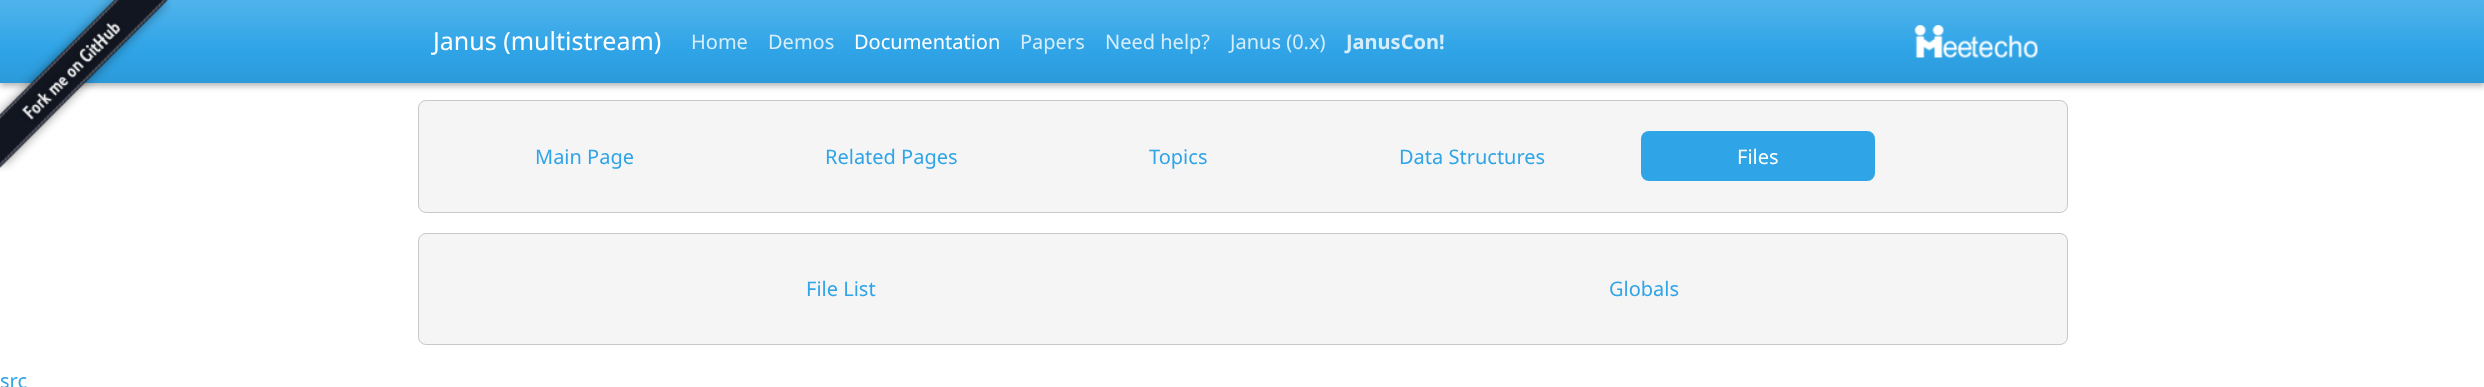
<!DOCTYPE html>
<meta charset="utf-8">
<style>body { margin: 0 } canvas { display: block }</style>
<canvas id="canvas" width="2484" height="387"></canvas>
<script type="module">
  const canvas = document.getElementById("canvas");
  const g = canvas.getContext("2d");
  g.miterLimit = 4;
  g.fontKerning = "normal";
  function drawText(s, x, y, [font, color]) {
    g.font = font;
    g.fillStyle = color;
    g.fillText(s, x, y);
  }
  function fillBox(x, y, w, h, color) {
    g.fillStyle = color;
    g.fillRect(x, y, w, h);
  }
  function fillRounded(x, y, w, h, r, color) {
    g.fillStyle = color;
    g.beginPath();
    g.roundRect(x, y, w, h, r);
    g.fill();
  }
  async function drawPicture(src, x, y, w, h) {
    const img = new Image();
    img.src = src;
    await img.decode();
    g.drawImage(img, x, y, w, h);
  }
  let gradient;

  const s1 = ["25px Noto Sans", "#FFFFFF"];
  const s2 = ["20px Noto Sans", "#D6EDFA"];
  const s3 = ["20px Noto Sans", "#FFFFFF"];
  const s4 = ["bold 20px Noto Sans", "#D6EDFA"];
  const s5 = ["20px Noto Sans", "#2FA4E7"];

  fillBox(0, 0, 2484, 387, "#FFFFFF");
  g.fillStyle = "rgba(100, 100, 100, 0.49)";
  g.filter = "blur(3px)";
  g.beginPath();
  g.rect(0, 4, 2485, 82);
  g.fill();
  g.filter = "none";
  gradient = g.createLinearGradient(1243, 0, 1243, 83);
  gradient.addColorStop(0, "#50B3EB");
  gradient.addColorStop(0.6, "#2FA4E7");
  gradient.addColorStop(1, "#2C9AD9");
  g.fillStyle = gradient;
  g.fillRect(0, 0, 2484, 83);
  await drawPicture("pic1.png", 0, 0, 171, 171);
  drawText("Janus (multistream)", 433, 50, s1);
  drawText("Home", 691, 49, s2);
  drawText("Demos", 768, 49, s2);
  drawText("Documentation", 854, 49, s3);
  drawText("Papers", 1020, 49, s2);
  drawText("Need help?", 1105, 49, s2);
  drawText("Janus (0.x)", 1230, 49, s2);
  drawText("JanusCon!", 1346, 49, s4);
  await drawPicture("pic2.png", 1914, 25, 124, 33);
  fillRounded(418, 100, 1650, 113, 8, "#F5F5F5");
  g.beginPath();
  g.roundRect(418.5, 100.5, 1649, 112, 7.5);
  g.strokeStyle = "rgba(0, 0, 0, 0.18)";
  g.stroke();
  drawText("Main Page", 535, 164, s5);
  drawText("Related Pages", 825, 164, s5);
  drawText("Topics", 1149, 164, s5);
  drawText("Data Structures", 1399, 164, s5);
  fillRounded(1641, 131, 234, 50, 8, "#2FA4E7");
  drawText("Files", 1737, 164, s3);
  fillRounded(418, 233, 1650, 112, 8, "#F5F5F5");
  g.beginPath();
  g.roundRect(418.5, 233.5, 1649, 111, 7.5);
  g.stroke();
  drawText("File List", 806, 296, s5);
  drawText("Globals", 1609, 296, s5);
  drawText("src", 0, 388, s5);
</script>
